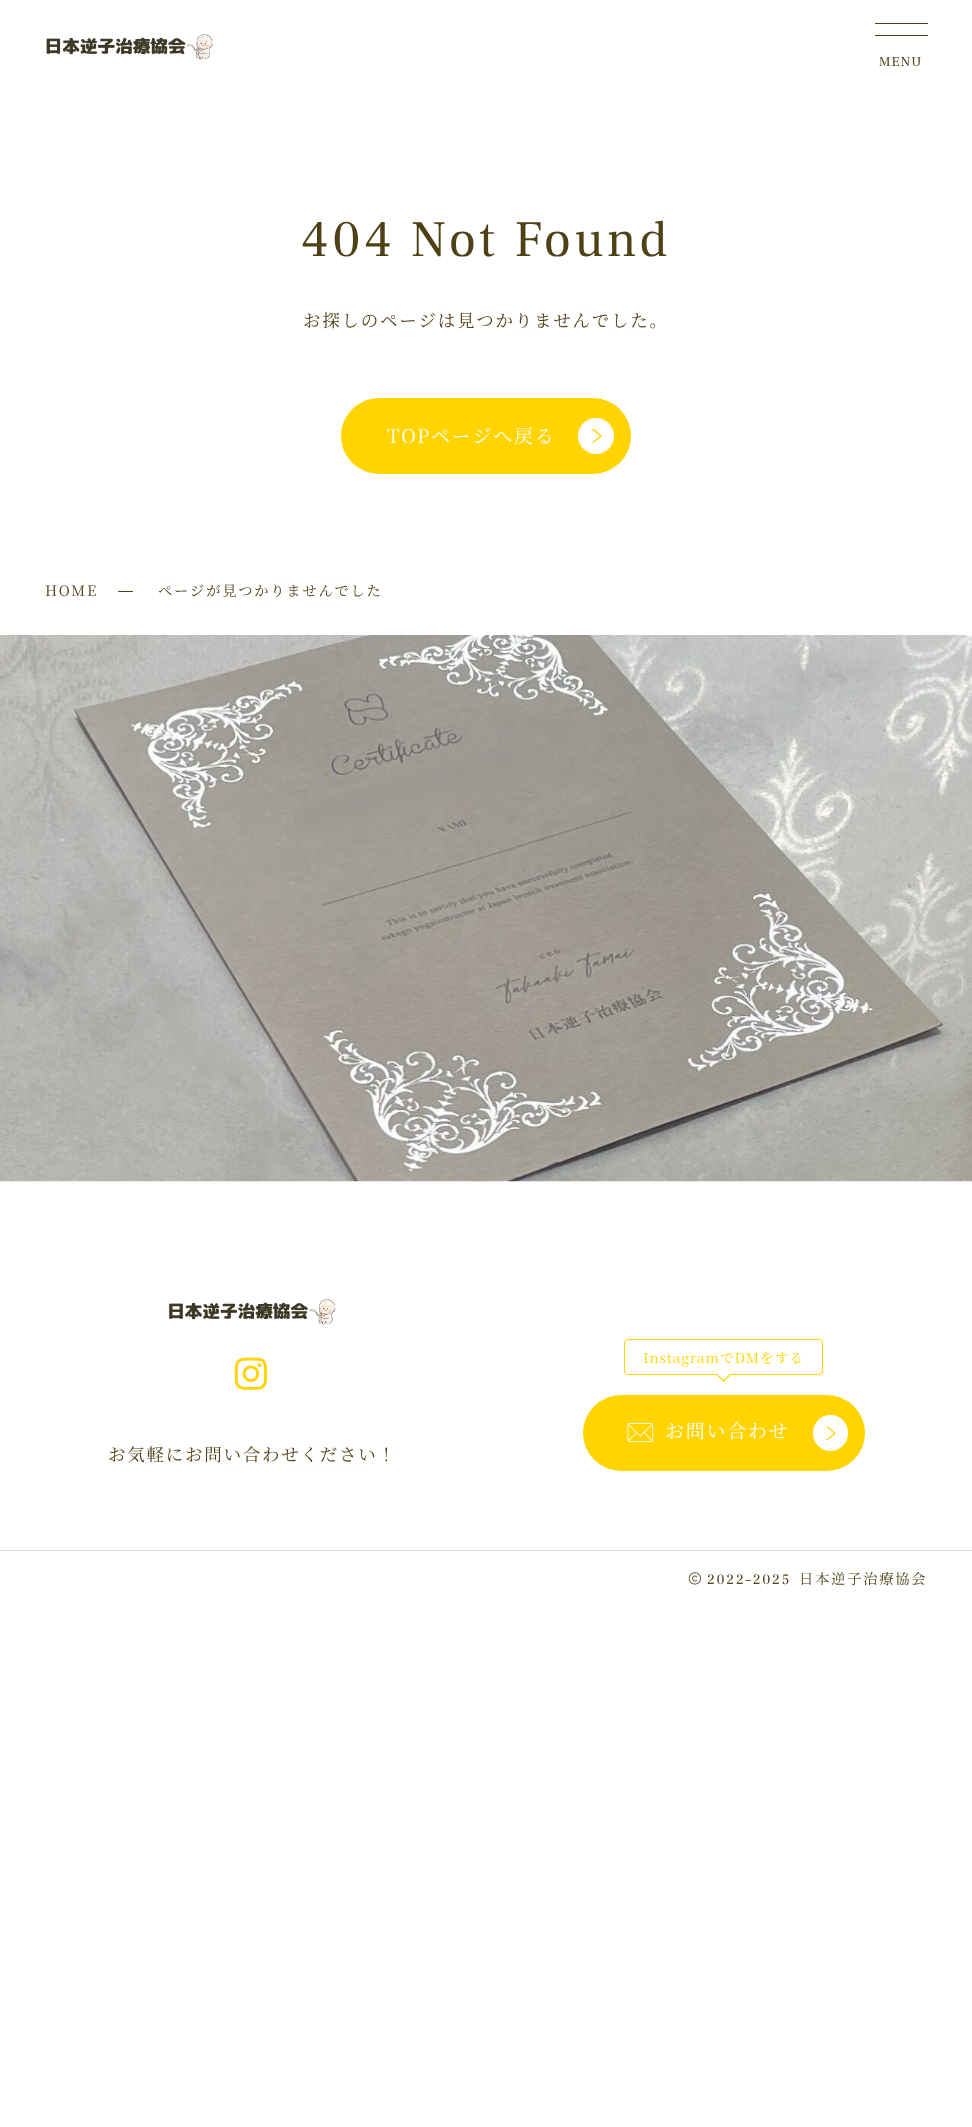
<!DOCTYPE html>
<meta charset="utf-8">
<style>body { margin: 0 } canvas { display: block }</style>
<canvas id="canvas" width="972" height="2127"></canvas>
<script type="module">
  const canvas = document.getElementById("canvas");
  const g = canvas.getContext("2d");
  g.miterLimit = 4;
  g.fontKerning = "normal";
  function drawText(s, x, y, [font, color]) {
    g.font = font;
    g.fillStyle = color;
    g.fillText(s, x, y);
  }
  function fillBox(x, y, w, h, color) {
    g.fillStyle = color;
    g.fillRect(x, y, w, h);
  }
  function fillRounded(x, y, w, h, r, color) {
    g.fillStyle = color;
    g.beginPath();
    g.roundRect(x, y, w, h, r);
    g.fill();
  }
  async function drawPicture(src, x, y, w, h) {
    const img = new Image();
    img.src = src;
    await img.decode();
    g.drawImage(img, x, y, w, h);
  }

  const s1 = ["13.75px Frank Ruhl Libre", "#4F4116"];
  const s2 = ["51px Frank Ruhl Libre", "#4F4116"];
  const s3 = ["17.5px Noto Serif JP", "#4F4116"];
  const s4 = ["19px Noto Serif JP", "#FFFFFF"];
  const s5 = ["14.3px Noto Serif JP", "#4F4116"];
  const s6 = ["13.75px Noto Serif JP", "#FFD400"];
  const s7 = ["14.3px Frank Ruhl Libre", "#4F4116"];

  fillBox(0, 0, 972, 2127, "#FFFFFF");
  await drawPicture("pic1.png", 46, 34, 167, 26);
  fillBox(875, 23, 53, 1, "#4F4116");
  fillBox(875, 35, 53, 1, "#4F4116");
  g.letterSpacing = "1px";
  drawText("MENU", 879, 66, s1);
  g.letterSpacing = "3.6px";
  drawText("404 Not Found", 301, 256, s2);
  g.letterSpacing = "1.75px";
  drawText("お探しのページは見つかりませんでした。", 303, 327, s3);
  fillRounded(341, 398, 290, 76, 38, "#FFD400");
  drawText("TOPページへ戻る", 387, 443, s4);
  g.beginPath();
  g.arc(596, 436, 18, 0, Math.PI * 2);
  g.fill();
  g.fillStyle = "#FFD400";
  g.beginPath();
  g.moveTo(591.5, 429);
  g.lineTo(594, 429);
  g.lineTo(602, 436);
  g.lineTo(594, 442.5);
  g.lineTo(592, 442.5);
  g.lineTo(600, 436);
  g.closePath();
  g.fill();
  drawText("HOME", 45, 596, s5);
  fillBox(118, 591, 15, 1, "#4F4116");
  drawText("ページが見つかりませんでした", 158, 596, s5);
  await drawPicture("pic2.png", 0, 635, 972, 547);
  g.beginPath();
  g.roundRect(624.5, 1339.5, 198, 35, 3.5);
  g.strokeStyle = "#FFD400";
  g.stroke();
  g.letterSpacing = "0.9px";
  drawText("InstagramでDMをする", 643, 1363, s6);
  g.fillStyle = "#FFFFFF";
  g.beginPath();
  g.moveTo(723.5, 1366);
  g.lineTo(731.5, 1374);
  g.lineTo(723.5, 1382);
  g.lineTo(715.5, 1374);
  g.closePath();
  g.fill();
  g.fillStyle = "#FFD400";
  g.beginPath();
  g.moveTo(730.5, 1373.5);
  g.lineTo(731.5, 1374);
  g.lineTo(723.5, 1382);
  g.lineTo(722.5, 1381);
  g.closePath();
  g.fill();
  g.beginPath();
  g.moveTo(716.5, 1373.5);
  g.lineTo(724.5, 1381);
  g.lineTo(723.5, 1382);
  g.lineTo(715.5, 1374);
  g.closePath();
  g.fill();
  fillRounded(583, 1395, 282, 76, 38, "#FFD400");
  await drawPicture("pic3.png", 627, 1423, 27, 20);
  g.letterSpacing = "1.75px";
  drawText("お問い合わせ", 665, 1438, s4);
  fillRounded(813, 1415, 35, 36, 17.5, "#FFFFFF");
  g.fillStyle = "#FFD400";
  g.beginPath();
  g.moveTo(826, 1426.5);
  g.lineTo(834, 1433.5);
  g.lineTo(826, 1440);
  g.lineTo(828, 1440);
  g.lineTo(836, 1433.5);
  g.lineTo(828, 1426.5);
  g.closePath();
  g.fill();
  await drawPicture("pic4.png", 168, 1299, 168, 26);
  await drawPicture("pic5.png", 234, 1357, 33, 33);
  drawText("お気軽にお問い合わせください！", 108, 1461, s3);
  fillBox(0, 1550, 972, 1, "#DFDDD5");
  await drawPicture("pic6.png", 688, 1572, 13, 13);
  drawText("2022–2025", 707, 1584, s7);
  drawText("日本逆子治療協会", 799, 1584, s5);
</script>
